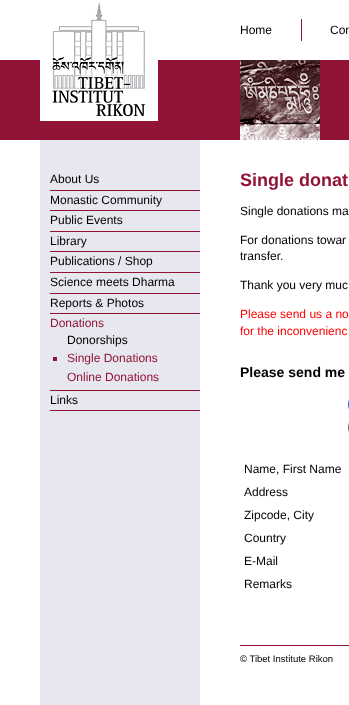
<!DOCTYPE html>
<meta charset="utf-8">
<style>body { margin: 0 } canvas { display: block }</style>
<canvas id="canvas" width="349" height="705"></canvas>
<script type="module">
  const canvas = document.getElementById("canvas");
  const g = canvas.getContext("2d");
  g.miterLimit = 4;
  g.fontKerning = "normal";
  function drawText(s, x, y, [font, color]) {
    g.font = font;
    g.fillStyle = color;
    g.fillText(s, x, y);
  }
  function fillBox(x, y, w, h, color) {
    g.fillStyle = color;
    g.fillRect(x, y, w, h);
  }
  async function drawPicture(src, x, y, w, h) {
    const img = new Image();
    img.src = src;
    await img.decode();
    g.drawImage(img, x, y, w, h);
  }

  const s1 = ["12px Liberation Sans", "#000000"];
  const s2 = ["12px Liberation Sans", "#911436"];
  const s3 = ["bold 18px Liberation Sans", "#911436"];
  const s4 = ["12px Liberation Sans", "#FF0000"];
  const s5 = ["bold 14px Liberation Sans", "#000000"];
  const s6 = ["9.5px Liberation Sans", "#000000"];

  fillBox(0, 0, 349, 705, "#FFFFFF");
  fillBox(40, 140, 160, 565, "#E7E7EF");
  fillBox(0, 60, 349, 80, "#911436");
  await drawPicture("pic1.png", 40, 3, 118, 118);
  drawText("Home", 240, 34, s1);
  drawText("Con", 330, 34, s1);
  fillBox(301, 19, 1, 22, "#911436");
  await drawPicture("pic2.png", 240, 60, 80, 80);
  drawText("About Us", 50, 183, s1);
  fillBox(50, 190, 150, 1, "#911436");
  drawText("Monastic Community", 50, 204, s1);
  fillBox(50, 210, 150, 1, "#911436");
  drawText("Public Events", 50, 224, s1);
  fillBox(50, 231, 150, 1, "#911436");
  drawText("Library", 50, 245, s1);
  fillBox(50, 251, 150, 1, "#911436");
  drawText("Publications / Shop", 50, 265, s1);
  fillBox(50, 272, 150, 1, "#911436");
  drawText("Science meets Dharma", 50, 286, s1);
  fillBox(50, 293, 150, 1, "#911436");
  drawText("Reports & Photos", 50, 307, s1);
  fillBox(50, 313, 150, 1, "#911436");
  drawText("Donations", 50, 327, s2);
  drawText("Donorships", 67, 344, s1);
  fillBox(53, 357, 4, 4, "#911436");
  drawText("Single Donations", 67, 362, s2);
  drawText("Online Donations", 67, 381, s2);
  fillBox(50, 390, 150, 1, "#911436");
  fillBox(50, 410, 150, 1, "#911436");
  drawText("Links", 50, 404, s1);
  drawText("Single donat", 240, 186, s3);
  drawText("Single donations ma", 240, 215, s1);
  drawText("For donations towar", 240, 244, s1);
  drawText("transfer.", 240, 260, s1);
  drawText("Thank you very muc", 240, 289, s1);
  drawText("Please send us a no", 240, 318, s4);
  drawText("for the inconvenienc", 240, 335, s4);
  drawText("Please send me", 240, 377, s5);
  g.beginPath();
  g.roundRect(348.5, 398.5, 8, 12, 6);
  g.strokeStyle = "#0075FF";
  g.stroke();
  g.beginPath();
  g.roundRect(348.5, 421.5, 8, 12, 6);
  g.strokeStyle = "#767676";
  g.stroke();
  drawText("Name, First Name", 244, 473, s1);
  drawText("Address", 244, 496, s1);
  drawText("Zipcode, City", 244, 519, s1);
  drawText("Country", 244, 542, s1);
  drawText("E-Mail", 244, 565, s1);
  drawText("Remarks", 244, 588, s1);
  fillBox(240, 645, 109, 1, "#911436");
  drawText("© Tibet Institute Rikon", 240, 662, s6);
</script>
